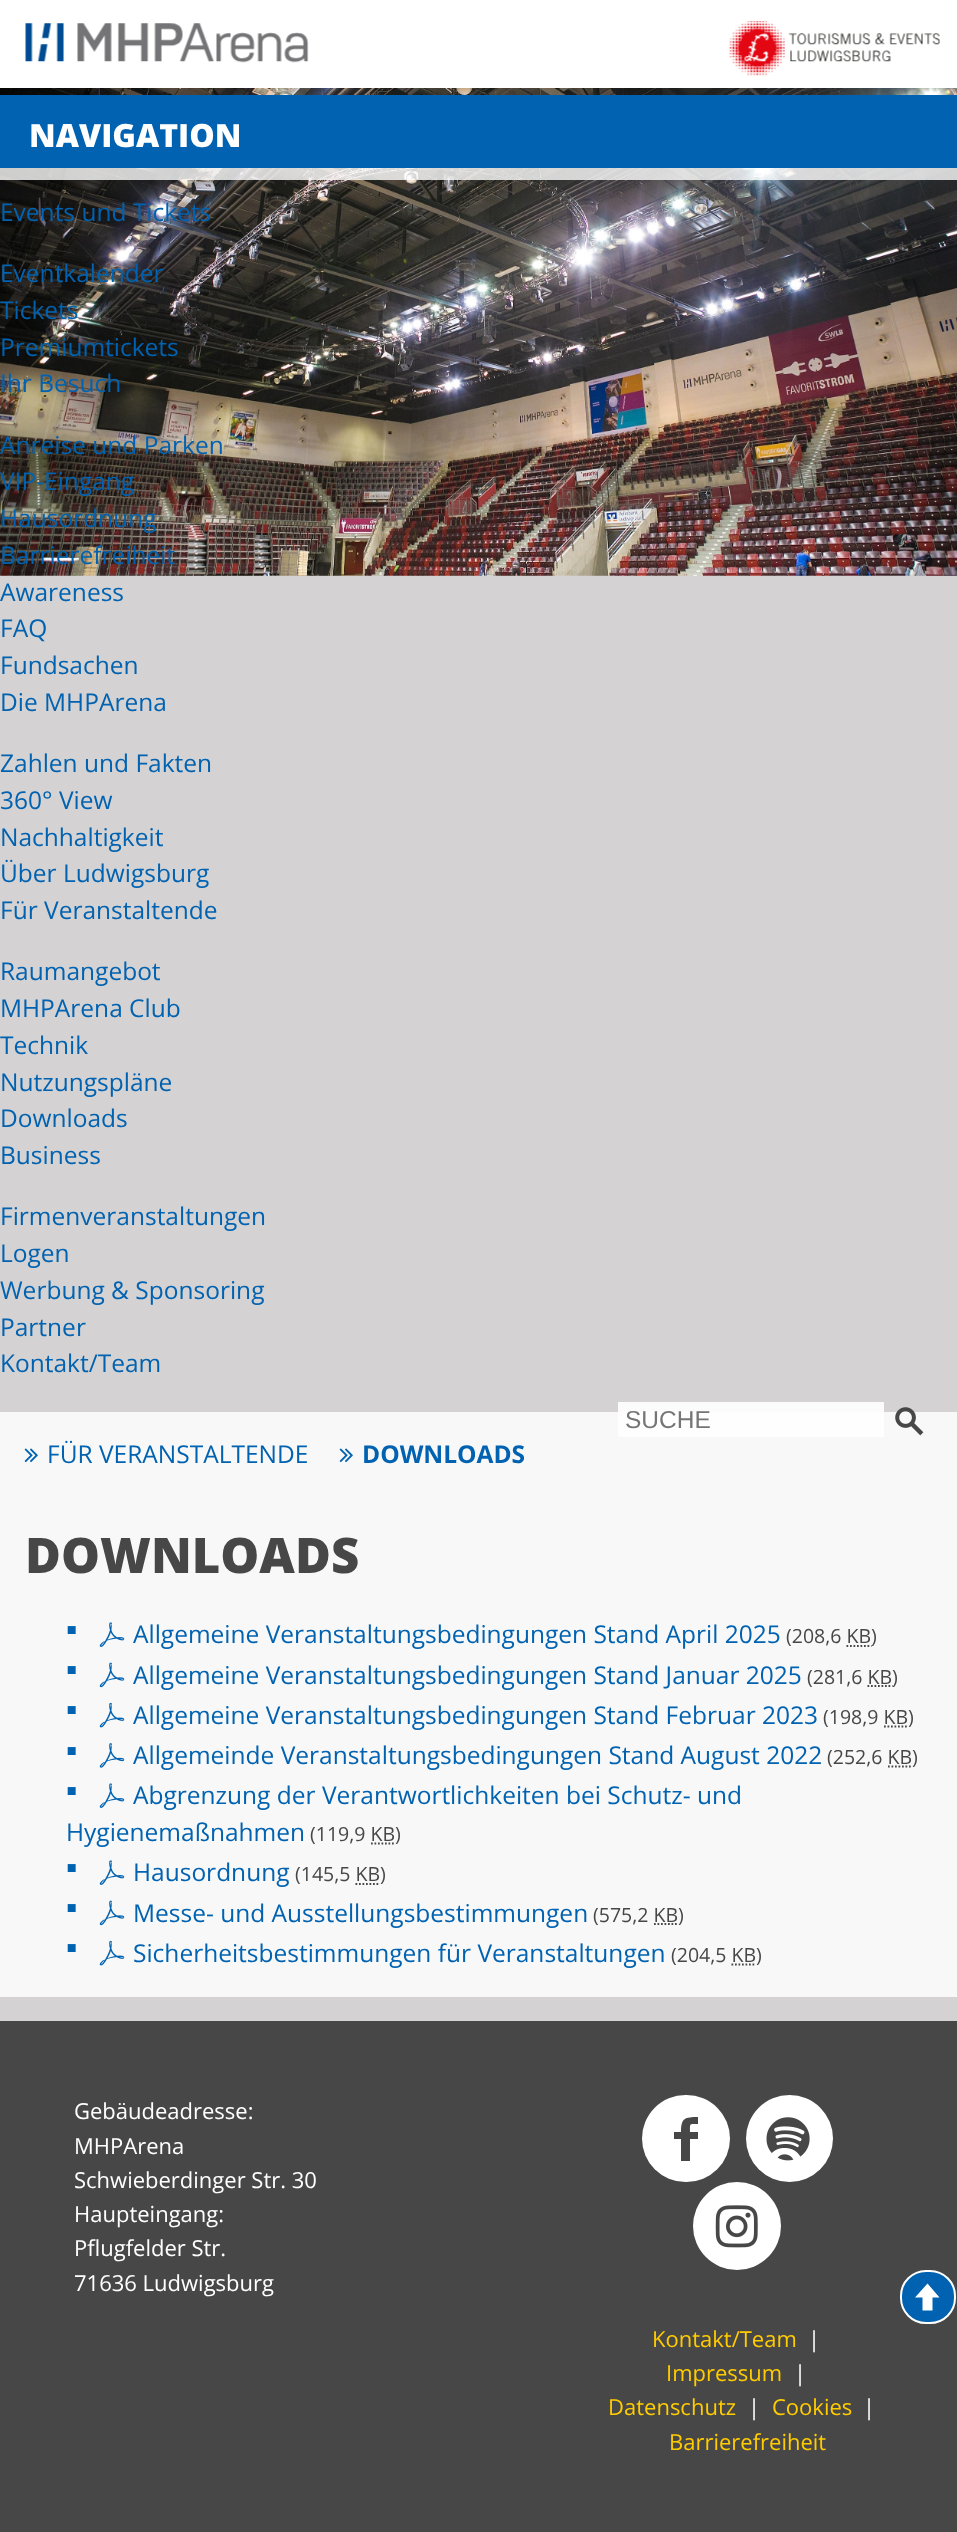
<!DOCTYPE html>
<meta charset="utf-8">
<style>body { margin: 0 } canvas { display: block }</style>
<canvas id="canvas" width="957" height="2532"></canvas>
<script type="module">
  const canvas = document.getElementById("canvas");
  const g = canvas.getContext("2d");
  g.miterLimit = 4;
  g.fontKerning = "normal";
  function drawText(s, x, y, [font, color]) {
    g.font = font;
    g.fillStyle = color;
    g.fillText(s, x, y);
  }
  function fillBox(x, y, w, h, color) {
    g.fillStyle = color;
    g.fillRect(x, y, w, h);
  }
  function fillRounded(x, y, w, h, r, color) {
    g.fillStyle = color;
    g.beginPath();
    g.roundRect(x, y, w, h, r);
    g.fill();
  }
  async function drawPicture(src, x, y, w, h) {
    const img = new Image();
    img.src = src;
    await img.decode();
    g.drawImage(img, x, y, w, h);
  }

  const s1 = ["800 32px Open Sans", "#FFFFFF"];
  const s2 = ["24.5px Open Sans", "#0062B0"];
  const s3 = ["24.5px Liberation Sans", "#757575"];
  const s4 = ["bold 24.5px Open Sans", "#0062B0"];
  const s5 = ["800 49px Open Sans", "#474747"];
  const s6 = ["32px Liberation Sans", "#0062B0"];
  const s7 = ["19.5px Open Sans", "#474747"];
  const s8 = ["22px Open Sans", "#FFFFFF"];
  const s9 = ["22px Open Sans", "#FFCC00"];

  fillBox(0, 0, 957, 2532, "#D4D2D2");
  fillBox(618, 1402, 266, 10, "#FBFBFB");
  await drawPicture("pic1.png", 0, 88, 957, 488);
  fillBox(0, 0, 957, 88, "#FFFFFF");
  await drawPicture("pic2.png", 25, 23, 284, 40);
  await drawPicture("pic3.png", 729, 21, 211, 55);
  fillBox(0, 168, 957, 12, "rgba(255, 255, 255, 0.8)");
  fillBox(0, 95, 957, 73, "#0062B0");
  drawText("NAVIGATION", 29, 147, s1);
  drawText("Events und Tickets", 0, 221, s2);
  drawText("Eventkalender", 0, 282, s2);
  drawText("Tickets", 0, 319, s2);
  drawText("Premiumtickets", 0, 356, s2);
  drawText("Ihr Besuch", 0, 392, s2);
  drawText("Anreise und Parken", 0, 454, s2);
  drawText("VIP-Eingang", 0, 490, s2);
  drawText("Hausordnung", 0, 527, s2);
  drawText("Barrierefreiheit", 0, 564, s2);
  drawText("Awareness", 0, 601, s2);
  drawText("FAQ", 0, 637, s2);
  drawText("Fundsachen", 0, 674, s2);
  drawText("Die MHPArena", 0, 711, s2);
  drawText("Zahlen und Fakten", 0, 772, s2);
  drawText("360° View", 0, 809, s2);
  drawText("Nachhaltigkeit", 0, 846, s2);
  drawText("Über Ludwigsburg", 0, 882, s2);
  drawText("Für Veranstaltende", 0, 919, s2);
  drawText("Raumangebot", 0, 980, s2);
  drawText("MHPArena Club", 0, 1017, s2);
  drawText("Technik", 0, 1054, s2);
  drawText("Nutzungspläne", 0, 1091, s2);
  drawText("Downloads", 0, 1127, s2);
  drawText("Business", 0, 1164, s2);
  drawText("Firmenveranstaltungen", 0, 1225, s2);
  drawText("Logen", 0, 1262, s2);
  drawText("Werbung & Sponsoring", 0, 1299, s2);
  drawText("Partner", 0, 1336, s2);
  drawText("Kontakt/Team", 0, 1372, s2);
  fillBox(0, 1412, 957, 585, "#F8F8F8");
  fillBox(618, 1412, 266, 25, "#FEFEFE");
  drawText("SUCHE", 625, 1428, s3);
  await drawPicture("pic4.png", 895, 1407, 29, 29);
  await drawPicture("pic5.png", 24, 1448, 14, 15);
  drawText("FÜR VERANSTALTENDE", 47, 1463, s2);
  await drawPicture("pic5.png", 339, 1448, 14, 15);
  drawText("DOWNLOADS", 362, 1463, s4);
  drawText("DOWNLOADS", 25, 1573, s5);
  drawText("▪", 66, 1640, s6);
  await drawPicture("pic6.png", 99, 1622, 26, 25);
  drawText("Allgemeine Veranstaltungsbedingungen Stand April 2025", 133, 1643, s2);
  drawText("(208,6 KB", 786, 1643, s7);
  g.beginPath();
  g.moveTo(846.5, 1646);
  g.lineTo(871.5, 1646);
  g.strokeStyle = "#474747";
  g.lineWidth = 1.8;
  g.setLineDash([1.75, 1.75]);
  g.stroke();
  drawText(")", 871, 1643, s7);
  drawText("▪", 66, 1680, s6);
  await drawPicture("pic7.png", 99, 1662, 26, 26);
  drawText("Allgemeine Veranstaltungsbedingungen Stand Januar 2025", 133, 1684, s2);
  drawText("(281,6 KB", 807, 1684, s7);
  g.beginPath();
  g.moveTo(867.5, 1686);
  g.lineTo(892.5, 1686);
  g.stroke();
  drawText(")", 892, 1684, s7);
  drawText("▪", 66, 1720, s6);
  await drawPicture("pic8.png", 99, 1702, 26, 26);
  drawText("Allgemeine Veranstaltungsbedingungen Stand Februar 2023", 133, 1724, s2);
  drawText("(198,9 KB)", 823, 1724, s7);
  g.beginPath();
  g.moveTo(884, 1726.5);
  g.lineTo(908.5, 1726.5);
  g.stroke();
  drawText("▪", 66, 1761, s6);
  await drawPicture("pic9.png", 99, 1743, 26, 25);
  drawText("Allgemeinde Veranstaltungsbedingungen Stand August 2022", 133, 1764, s2);
  drawText("(252,6 KB)", 827, 1764, s7);
  g.beginPath();
  g.moveTo(888, 1766.5);
  g.lineTo(912.5, 1766.5);
  g.stroke();
  await drawPicture("pic6.png", 99, 1783, 26, 25);
  drawText("Abgrenzung der Verantwortlichkeiten bei Schutz- und", 133, 1804, s2);
  drawText("Hygienemaßnahmen", 66, 1841, s2);
  drawText("▪", 66, 1801, s6);
  drawText("(119,9 KB)", 310, 1841, s7);
  g.beginPath();
  g.moveTo(371, 1843.5);
  g.lineTo(395.5, 1843.5);
  g.stroke();
  drawText("▪", 66, 1878, s6);
  await drawPicture("pic6.png", 99, 1860, 26, 25);
  drawText("Hausordnung", 133, 1881, s2);
  drawText("(145,5 KB)", 295, 1881, s7);
  g.beginPath();
  g.moveTo(355.5, 1884);
  g.lineTo(380, 1884);
  g.stroke();
  drawText("▪", 66, 1918, s6);
  await drawPicture("pic7.png", 99, 1900, 26, 26);
  drawText("Messe- und Ausstellungsbestimmungen", 133, 1922, s2);
  drawText("(575,2 KB)", 593, 1922, s7);
  g.beginPath();
  g.moveTo(654, 1924);
  g.lineTo(678.5, 1924);
  g.stroke();
  drawText("▪", 66, 1958, s6);
  await drawPicture("pic8.png", 99, 1940, 26, 26);
  drawText("Sicherheitsbestimmungen für Veranstaltungen", 133, 1962, s2);
  drawText("(204,5 KB)", 671, 1962, s7);
  g.beginPath();
  g.moveTo(731.5, 1964.5);
  g.lineTo(756, 1964.5);
  g.stroke();
  fillBox(0, 2021, 957, 511, "#474747");
  drawText("Gebäudeadresse:", 74, 2119, s8);
  drawText("MHPArena", 74, 2154, s8);
  drawText("Schwieberdinger Str. 30", 74, 2188, s8);
  drawText("Haupteingang:", 74, 2222, s8);
  drawText("Pflugfelder Str.", 74, 2256, s8);
  drawText("71636 Ludwigsburg", 74, 2291, s8);
  fillRounded(642, 2095, 88, 87, 43.5, "#FFFFFF");
  g.fillStyle = "#474747";
  g.beginPath();
  g.moveTo(698, 2124);
  g.bezierCurveTo(689, 2124, 690, 2123, 690, 2132);
  g.lineTo(698, 2132);
  g.lineTo(698, 2139);
  g.lineTo(690, 2139);
  g.lineTo(690, 2161);
  g.lineTo(681, 2161);
  g.lineTo(681, 2139);
  g.lineTo(674, 2139);
  g.lineTo(674, 2132);
  g.lineTo(681, 2132);
  g.bezierCurveTo(681, 2118, 685, 2117, 698, 2117);
  g.closePath();
  g.fill();
  g.fillStyle = "#FFFFFF";
  g.beginPath();
  g.arc(789.5, 2138.5, 43.5, 0, Math.PI * 2);
  g.fill();
  await drawPicture("pic10.png", 766, 2117, 44, 44);
  g.beginPath();
  g.arc(737, 2226, 44, 0, Math.PI * 2);
  g.fill();
  await drawPicture("pic11.png", 715, 2205, 43, 43);
  drawText("Kontakt/Team", 652, 2347, s9);
  drawText("|", 808, 2347, s8);
  drawText("Impressum", 666, 2381, s9);
  drawText("|", 794, 2381, s8);
  drawText("Datenschutz", 608, 2415, s9);
  drawText("|", 748, 2415, s8);
  drawText("Cookies", 772, 2415, s9);
  drawText("|", 863, 2415, s8);
  drawText("Barrierefreiheit", 669, 2450, s9);
  g.fillStyle = "#0062B0";
  g.beginPath();
  g.roundRect(901, 2271, 54, 52, 25);
  g.fill();
  g.strokeStyle = "#FFFFFF";
  g.lineWidth = 2;
  g.setLineDash([]);
  g.stroke();
  g.fillStyle = "#FFFFFF";
  g.beginPath();
  g.moveTo(939.5, 2297.5);
  g.lineTo(932.5, 2297.5);
  g.lineTo(932.5, 2310.5);
  g.lineTo(922.5, 2310.5);
  g.lineTo(922.5, 2297.5);
  g.lineTo(915, 2297.5);
  g.lineTo(927.5, 2283.5);
  g.closePath();
  g.fill();
</script>
